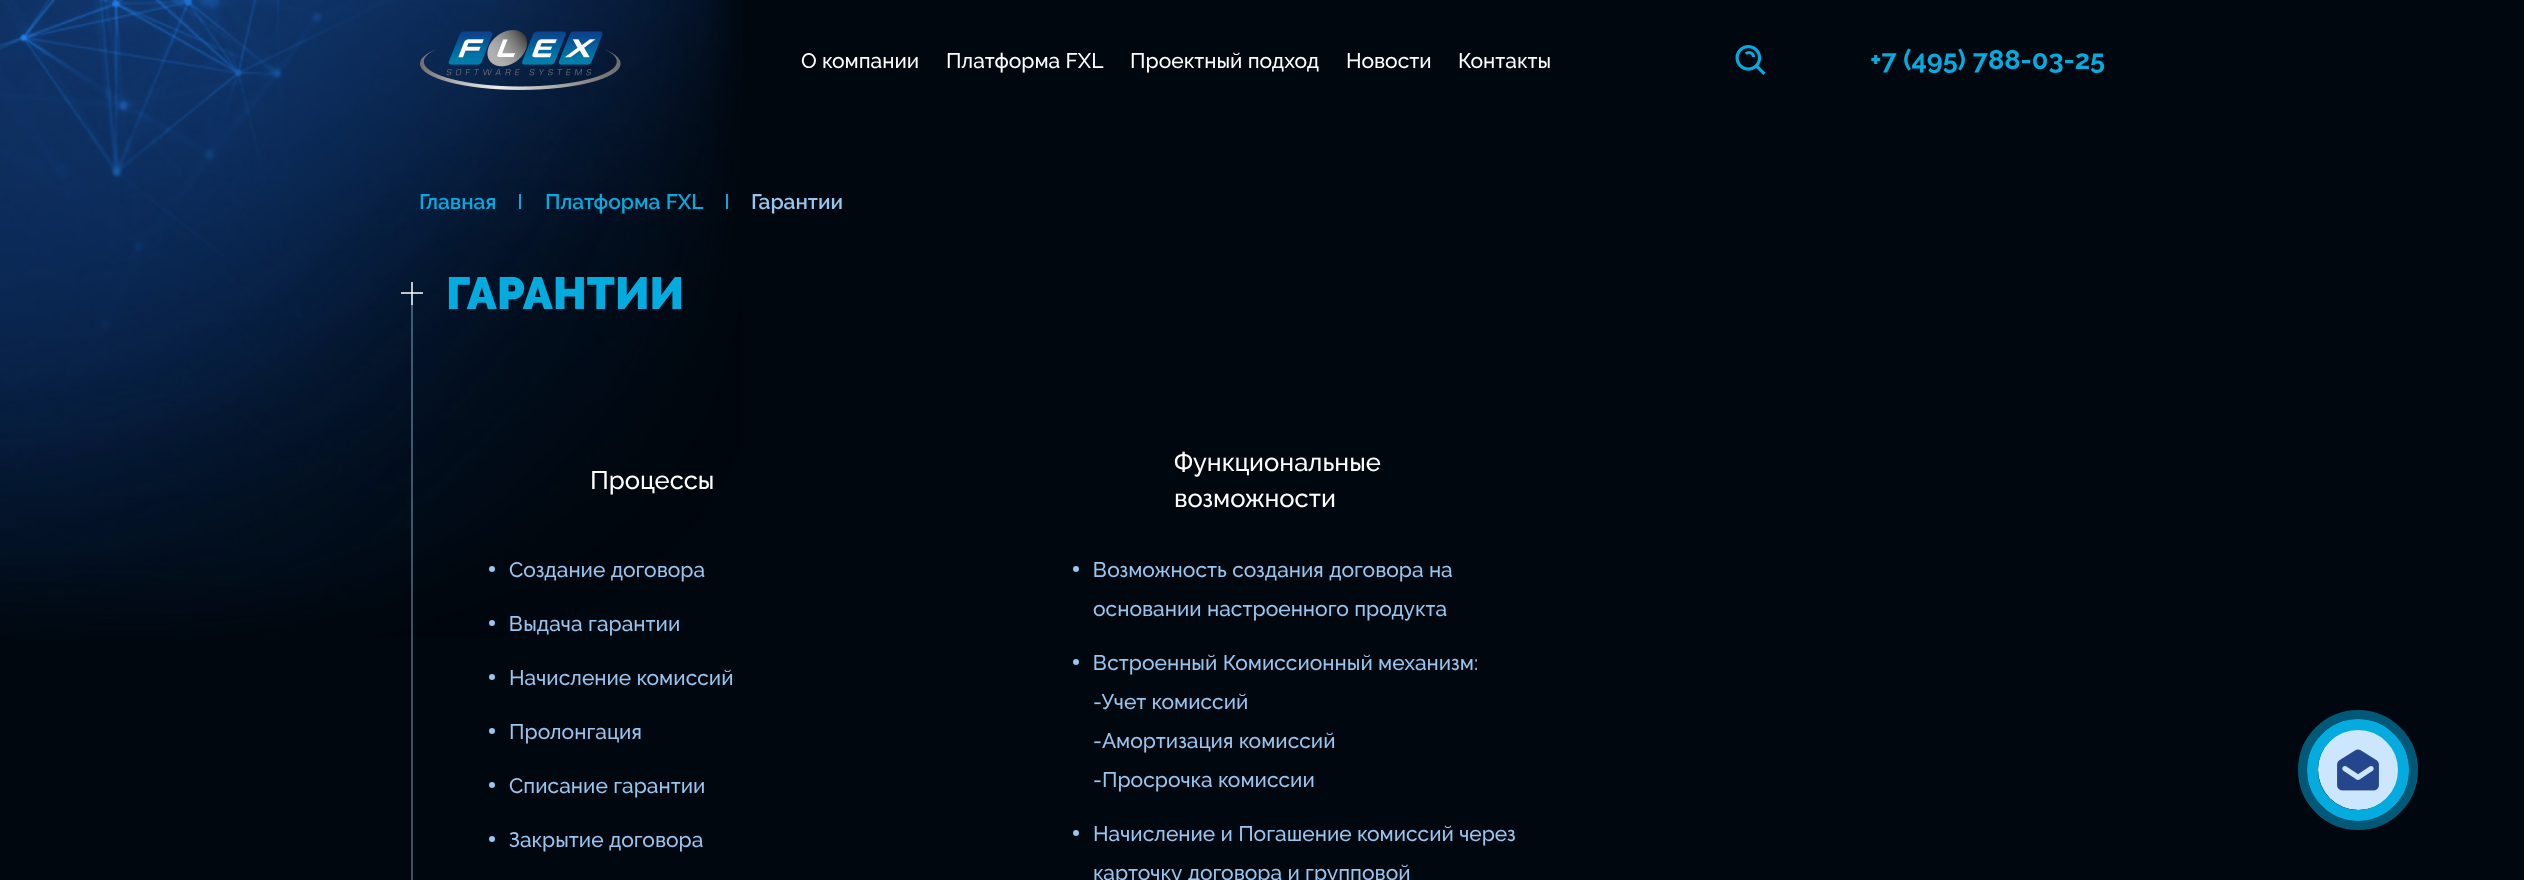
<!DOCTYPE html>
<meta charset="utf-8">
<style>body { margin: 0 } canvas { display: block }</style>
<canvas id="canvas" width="2524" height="880"></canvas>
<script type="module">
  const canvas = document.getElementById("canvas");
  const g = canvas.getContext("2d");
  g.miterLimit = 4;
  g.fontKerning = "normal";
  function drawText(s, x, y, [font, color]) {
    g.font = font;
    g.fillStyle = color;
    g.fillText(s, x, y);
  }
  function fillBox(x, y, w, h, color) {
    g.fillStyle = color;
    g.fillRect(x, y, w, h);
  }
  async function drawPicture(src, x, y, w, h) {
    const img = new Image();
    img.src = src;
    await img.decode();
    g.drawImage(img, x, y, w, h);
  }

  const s1 = ["500 21px Raleway", "#FFFFFF"];
  const s2 = ["bold 27px Raleway", "#03ABDF"];
  const s3 = ["600 21px Raleway", "#03ABDF"];
  const s4 = ["600 21px Raleway", "#97C5EE"];
  const s5 = ["900 45px Raleway", "#03ABDF"];
  const s6 = ["500 25.5px Raleway", "#FFFFFF"];
  const s7 = ["500 21px Raleway", "#97C5EE"];

  fillBox(0, 0, 2524, 880, "#00070E");
  await drawPicture("pic1.png", 0, 0, 742, 637);
  await drawPicture("pic2.png", 420, 30, 201, 60);
  drawText("О компании", 801, 68, s1);
  drawText("Платформа FXL", 946, 68, s1);
  drawText("Проектный подход", 1130, 68, s1);
  drawText("Новости", 1346, 68, s1);
  drawText("Контакты", 1458, 68, s1);
  await drawPicture("pic3.png", 1735, 45, 31, 30);
  drawText("+7 (495) 788-03-25", 1870, 69, s2);
  drawText("Главная", 419, 209, s3);
  fillBox(519, 194, 2, 15, "#03ABDF");
  drawText("Платформа FXL", 545, 209, s3);
  fillBox(726, 194, 2, 15, "#03ABDF");
  drawText("Гарантии", 751, 209, s4);
  drawText("ГАРАНТИИ", 446, 309, s5);
  fillBox(411, 282, 2, 23, "rgba(255, 255, 255, 0.75)");
  fillBox(401, 292, 22, 2, "rgba(255, 255, 255, 0.75)");
  fillBox(411, 297, 2, 583, "rgba(172, 230, 255, 0.35)");
  drawText("Процессы", 590, 489, s6);
  g.fillStyle = "#97C5EE";
  g.beginPath();
  g.arc(492, 569, 3, 0, Math.PI * 2);
  g.fill();
  drawText("Создание договора", 509, 577, s7);
  g.beginPath();
  g.arc(492, 623, 3, 0, Math.PI * 2);
  g.fill();
  drawText("Выдача гарантии", 509, 631, s7);
  g.beginPath();
  g.arc(492, 677, 3, 0, Math.PI * 2);
  g.fill();
  drawText("Начисление комиссий", 509, 685, s7);
  g.beginPath();
  g.arc(492, 731, 3, 0, Math.PI * 2);
  g.fill();
  drawText("Пролонгация", 509, 739, s7);
  g.beginPath();
  g.arc(492, 785, 3, 0, Math.PI * 2);
  g.fill();
  drawText("Списание гарантии", 509, 793, s7);
  g.beginPath();
  g.arc(492, 839, 3, 0, Math.PI * 2);
  g.fill();
  drawText("Закрытие договора", 509, 847, s7);
  drawText("Функциональные", 1174, 471, s6);
  drawText("возможности", 1174, 507, s6);
  g.fillStyle = "#97C5EE";
  g.beginPath();
  g.arc(1076, 569, 3, 0, Math.PI * 2);
  g.fill();
  drawText("Возможность создания договора на", 1093, 577, s7);
  drawText("основании настроенного продукта", 1093, 616, s7);
  g.beginPath();
  g.arc(1076, 662, 3, 0, Math.PI * 2);
  g.fill();
  drawText("Встроенный Комиссионный механизм:", 1093, 670, s7);
  drawText("-Учет комиссий", 1093, 709, s7);
  drawText("-Амортизация комиссий", 1093, 748, s7);
  drawText("-Просрочка комиссии", 1093, 787, s7);
  g.beginPath();
  g.arc(1076, 833, 3, 0, Math.PI * 2);
  g.fill();
  drawText("Начисление и Погашение комиссий через", 1093, 841, s7);
  drawText("карточку договора и групповой", 1093, 880, s7);
  g.fillStyle = "#CCE6FD";
  g.beginPath();
  g.arc(2358.5, 769.5, 40.5, 0, Math.PI * 2);
  g.fill();
  await drawPicture("pic4.png", 2337, 749, 42, 42);
  g.beginPath();
  g.arc(2358, 770, 45.5, 0, Math.PI * 2);
  g.strokeStyle = "#03ABDF";
  g.lineWidth = 11;
  g.stroke();
  g.beginPath();
  g.arc(2358, 770, 55.5, 0, Math.PI * 2);
  g.strokeStyle = "rgba(3, 171, 223, 0.5)";
  g.lineWidth = 9;
  g.stroke();
</script>
